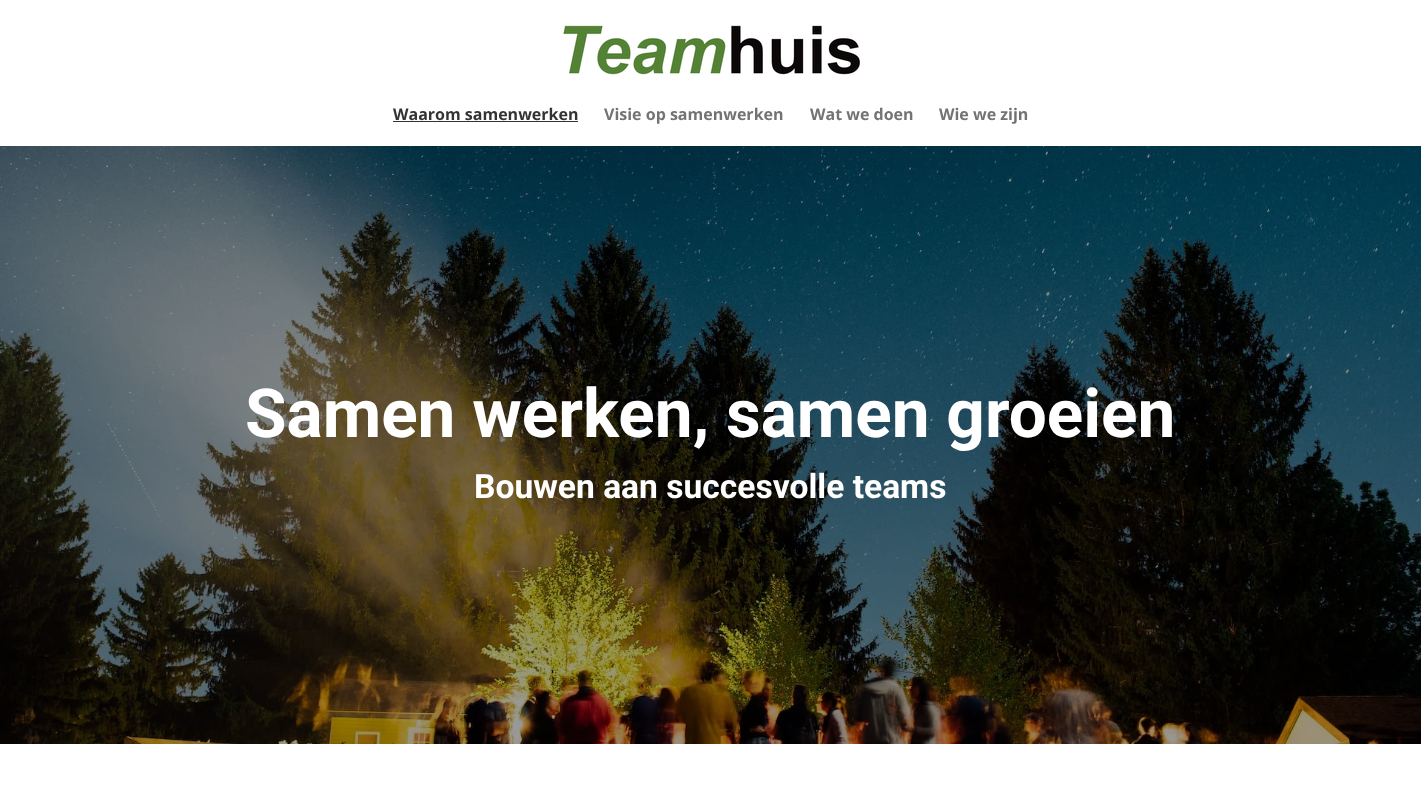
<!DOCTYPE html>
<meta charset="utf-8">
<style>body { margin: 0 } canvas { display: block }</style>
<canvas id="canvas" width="1421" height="790"></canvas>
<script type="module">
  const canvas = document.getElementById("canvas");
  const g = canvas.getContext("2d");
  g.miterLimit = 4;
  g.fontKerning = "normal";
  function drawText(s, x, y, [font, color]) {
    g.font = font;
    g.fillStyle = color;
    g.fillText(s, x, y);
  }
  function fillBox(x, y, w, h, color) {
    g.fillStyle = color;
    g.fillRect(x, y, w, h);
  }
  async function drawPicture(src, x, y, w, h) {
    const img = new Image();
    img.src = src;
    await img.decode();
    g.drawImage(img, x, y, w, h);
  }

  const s1 = ["bold 16px Open Sans", "#333333"];
  const s2 = ["bold 16px Open Sans", "#737373"];
  const s3 = ["bold 67.5px Roboto", "#FFFFFF"];
  const s4 = ["bold 33.6px Roboto", "#FFFFFF"];

  fillBox(0, 0, 1421, 790, "#FFFFFF");
  await drawPicture("pic1.png", 563, 25, 297, 50);
  drawText("Waarom samenwerken", 393, 120, s1);
  fillBox(393, 121, 185, 1, "#333333");
  drawText("Visie op samenwerken", 604, 120, s2);
  drawText("Wat we doen", 810, 120, s2);
  drawText("Wie we zijn", 939, 120, s2);
  await drawPicture("pic2.png", 0, 146, 1421, 598);
  drawText("Samen werken, samen groeien", 245, 437, s3);
  drawText("Bouwen aan succesvolle teams", 474, 498, s4);
</script>
